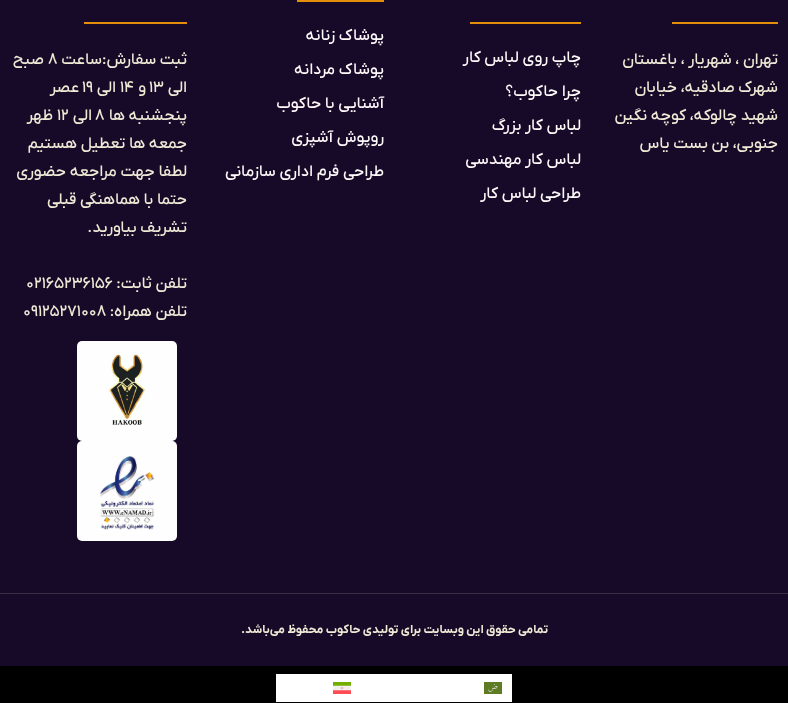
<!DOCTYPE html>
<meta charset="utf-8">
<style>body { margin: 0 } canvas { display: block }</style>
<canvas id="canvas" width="788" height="703"></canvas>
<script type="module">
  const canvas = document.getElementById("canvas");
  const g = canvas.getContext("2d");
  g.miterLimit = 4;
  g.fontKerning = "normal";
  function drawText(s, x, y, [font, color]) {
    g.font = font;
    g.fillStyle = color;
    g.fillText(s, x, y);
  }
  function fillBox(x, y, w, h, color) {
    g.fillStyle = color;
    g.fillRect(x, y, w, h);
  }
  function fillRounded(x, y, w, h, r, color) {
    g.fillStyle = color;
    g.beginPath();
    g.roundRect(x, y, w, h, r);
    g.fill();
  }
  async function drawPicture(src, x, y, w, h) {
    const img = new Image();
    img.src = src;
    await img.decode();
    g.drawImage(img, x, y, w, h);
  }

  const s1 = ["500 16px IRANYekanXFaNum", "#EEEAD6"];
  const s2 = ["500 16px IRANYekanXFaNum", "#FFFAFA"];
  const s3 = ["bold 12px IRANYekanXFaNum", "#EEEAD6"];

  fillBox(0, 0, 788, 703, "#000000");
  fillBox(0, 0, 788, 593, "#160A28");
  fillBox(672, 22, 106, 2, "#E48F09");
  g.direction = "rtl";
  drawText("تهران ، شهریار ، باغستان", 778, 64, s1);
  drawText("شهرک صادقیه، خیابان", 778, 92, s1);
  drawText("شهید چالوکه، کوچه نگین", 778, 120, s1);
  drawText("جنوبی، بن بست یاس", 778, 148, s1);
  fillBox(470, 22, 111, 2, "#E48F09");
  drawText("چاپ روی لباس کار", 581, 62, s2);
  drawText("چرا حاکوب؟", 581, 96, s2);
  drawText("لباس کار بزرگ", 581, 130, s2);
  drawText("لباس کار مهندسی", 581, 164, s2);
  drawText("طراحی لباس کار", 581, 198, s2);
  fillBox(297, 0, 87, 2, "#E48F09");
  drawText("پوشاک زنانه", 384, 40, s2);
  drawText("پوشاک مردانه", 384, 74, s2);
  drawText("آشنایی با حاکوب", 384, 108, s2);
  drawText("روپوش آشپزی", 384, 142, s2);
  drawText("طراحی فرم اداری سازمانی", 384, 176, s2);
  fillBox(84, 22, 103, 2, "#E48F09");
  drawText("ثبت سفارش:ساعت", 187, 64, s1);
  g.direction = "ltr";
  drawText("۸", 48, 64, s1);
  g.direction = "rtl";
  drawText("صبح", 44, 64, s1);
  drawText("الی", 187, 92, s1);
  g.direction = "ltr";
  drawText("۱۳", 149, 92, s1);
  g.direction = "rtl";
  drawText("و", 146, 92, s1);
  g.direction = "ltr";
  drawText("۱۴", 120, 92, s1);
  g.direction = "rtl";
  drawText("الی", 116, 92, s1);
  g.direction = "ltr";
  drawText("۱۹", 82, 92, s1);
  g.direction = "rtl";
  drawText("عصر", 79, 92, s1);
  drawText("پنجشنبه ها", 187, 120, s1);
  g.direction = "ltr";
  drawText("۸", 95, 120, s1);
  g.direction = "rtl";
  drawText("الی", 92, 120, s1);
  g.direction = "ltr";
  drawText("۱۲", 57, 120, s1);
  g.direction = "rtl";
  drawText("ظهر", 53, 120, s1);
  drawText("جمعه ها تعطیل هستیم", 187, 148, s1);
  drawText("لطفا جهت مراجعه حضوری", 187, 176, s1);
  drawText("حتما با هماهنگی قبلی", 187, 204, s1);
  drawText("تشریف بیاورید.", 187, 232, s1);
  drawText("تلفن ثابت:", 187, 288, s1);
  g.direction = "ltr";
  drawText("02165236156", 26, 288, s1);
  g.direction = "rtl";
  drawText("تلفن همراه:", 187, 316, s1);
  g.direction = "ltr";
  drawText("09125271008", 23, 316, s1);
  fillRounded(77, 341, 100, 100, 5, "#FFFEFE");
  await drawPicture("pic1.png", 109, 354, 38, 72);
  fillRounded(77, 441, 100, 100, 5, "#FFFEFE");
  await drawPicture("pic2.png", 99, 455, 56, 75);
  fillBox(0, 594, 788, 72, "#160A28");
  fillBox(0, 593, 788, 1, "#373043");
  g.direction = "rtl";
  drawText("تمامی حقوق این وبسایت برای تولیدی حاکوب محفوظ می‌باشد.", 548, 633, s3);
  fillBox(276, 674, 236, 28, "#FFFFFF");
  await drawPicture("pic3.png", 484, 682, 18, 12);
  await drawPicture("pic4.png", 333, 682, 18, 12);
</script>
